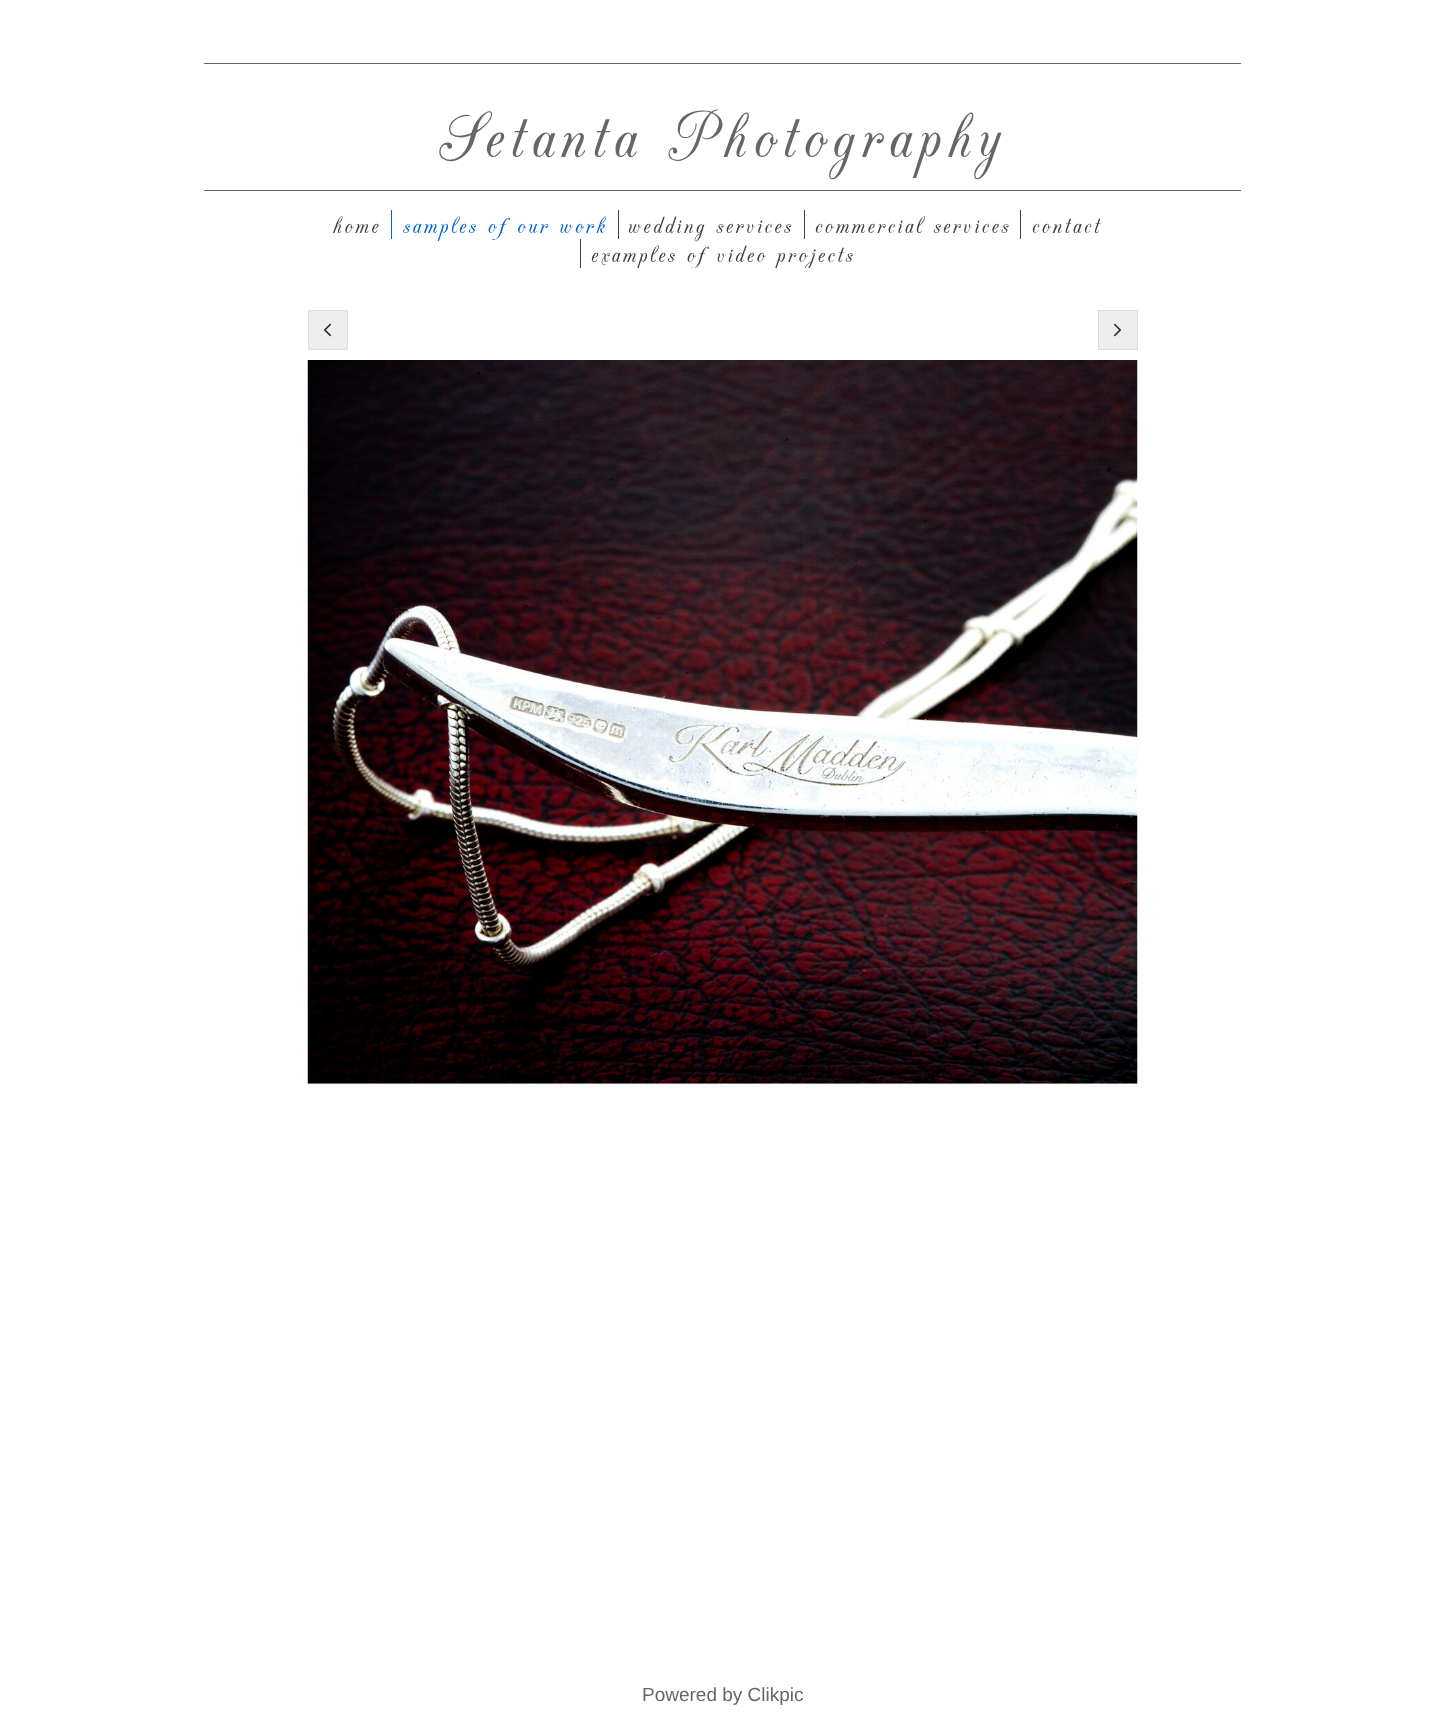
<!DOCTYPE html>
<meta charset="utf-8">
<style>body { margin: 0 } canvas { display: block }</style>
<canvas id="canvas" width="1445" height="1729"></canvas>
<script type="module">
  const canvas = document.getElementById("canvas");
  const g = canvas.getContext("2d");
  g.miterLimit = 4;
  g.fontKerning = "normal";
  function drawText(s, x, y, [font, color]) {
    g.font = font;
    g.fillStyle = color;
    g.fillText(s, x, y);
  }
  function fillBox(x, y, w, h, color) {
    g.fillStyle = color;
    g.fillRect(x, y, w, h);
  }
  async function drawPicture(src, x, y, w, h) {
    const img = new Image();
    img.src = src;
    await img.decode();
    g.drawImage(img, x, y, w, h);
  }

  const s1 = ["76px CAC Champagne", "#666666"];
  const s2 = ["28.5px CAC Champagne", "#3F3F3F"];
  const s3 = ["28.5px CAC Champagne", "#0065CF"];
  const s4 = ["19px Liberation Sans", "#666666"];

  fillBox(0, 0, 1445, 1729, "#FFFFFF");
  fillBox(204, 63, 1037, 1, "#666666");
  fillBox(204, 190, 1037, 1, "#666666");
  g.letterSpacing = "6.25px";
  drawText("Setanta Photography", 438, 157, s1);
  g.letterSpacing = "2.5px";
  drawText("home", 333, 233, s2);
  fillBox(391, 210, 1, 29, "#0065CF");
  drawText("samples of our work", 403, 233, s3);
  fillBox(618, 210, 1, 29, "#3F3F3F");
  drawText("wedding services", 628, 233, s2);
  fillBox(804, 210, 1, 29, "#3F3F3F");
  drawText("commercial services", 815, 233, s2);
  fillBox(1020, 210, 1, 29, "#3F3F3F");
  drawText("contact", 1032, 233, s2);
  fillBox(580, 239, 1, 29, "#3F3F3F");
  g.save();
  g.beginPath();
  g.rect(204, 210, 1037, 58);
  g.clip();
  drawText("examples of video projects", 591, 262, s2);
  g.restore();
  g.fillStyle = "#EEEEEE";
  g.beginPath();
  g.rect(308.5, 310.5, 39, 39);
  g.fill();
  g.strokeStyle = "#DDDDDD";
  g.stroke();
  await drawPicture("pic1.png", 323, 323, 8, 14);
  g.beginPath();
  g.rect(1098.5, 310.5, 39, 39);
  g.fill();
  g.stroke();
  await drawPicture("pic2.png", 1113, 323, 8, 14);
  await drawPicture("pic3.png", 307, 360, 831, 724);
  g.letterSpacing = "0px";
  drawText("Powered by Clikpic", 642, 1701, s4);
</script>
